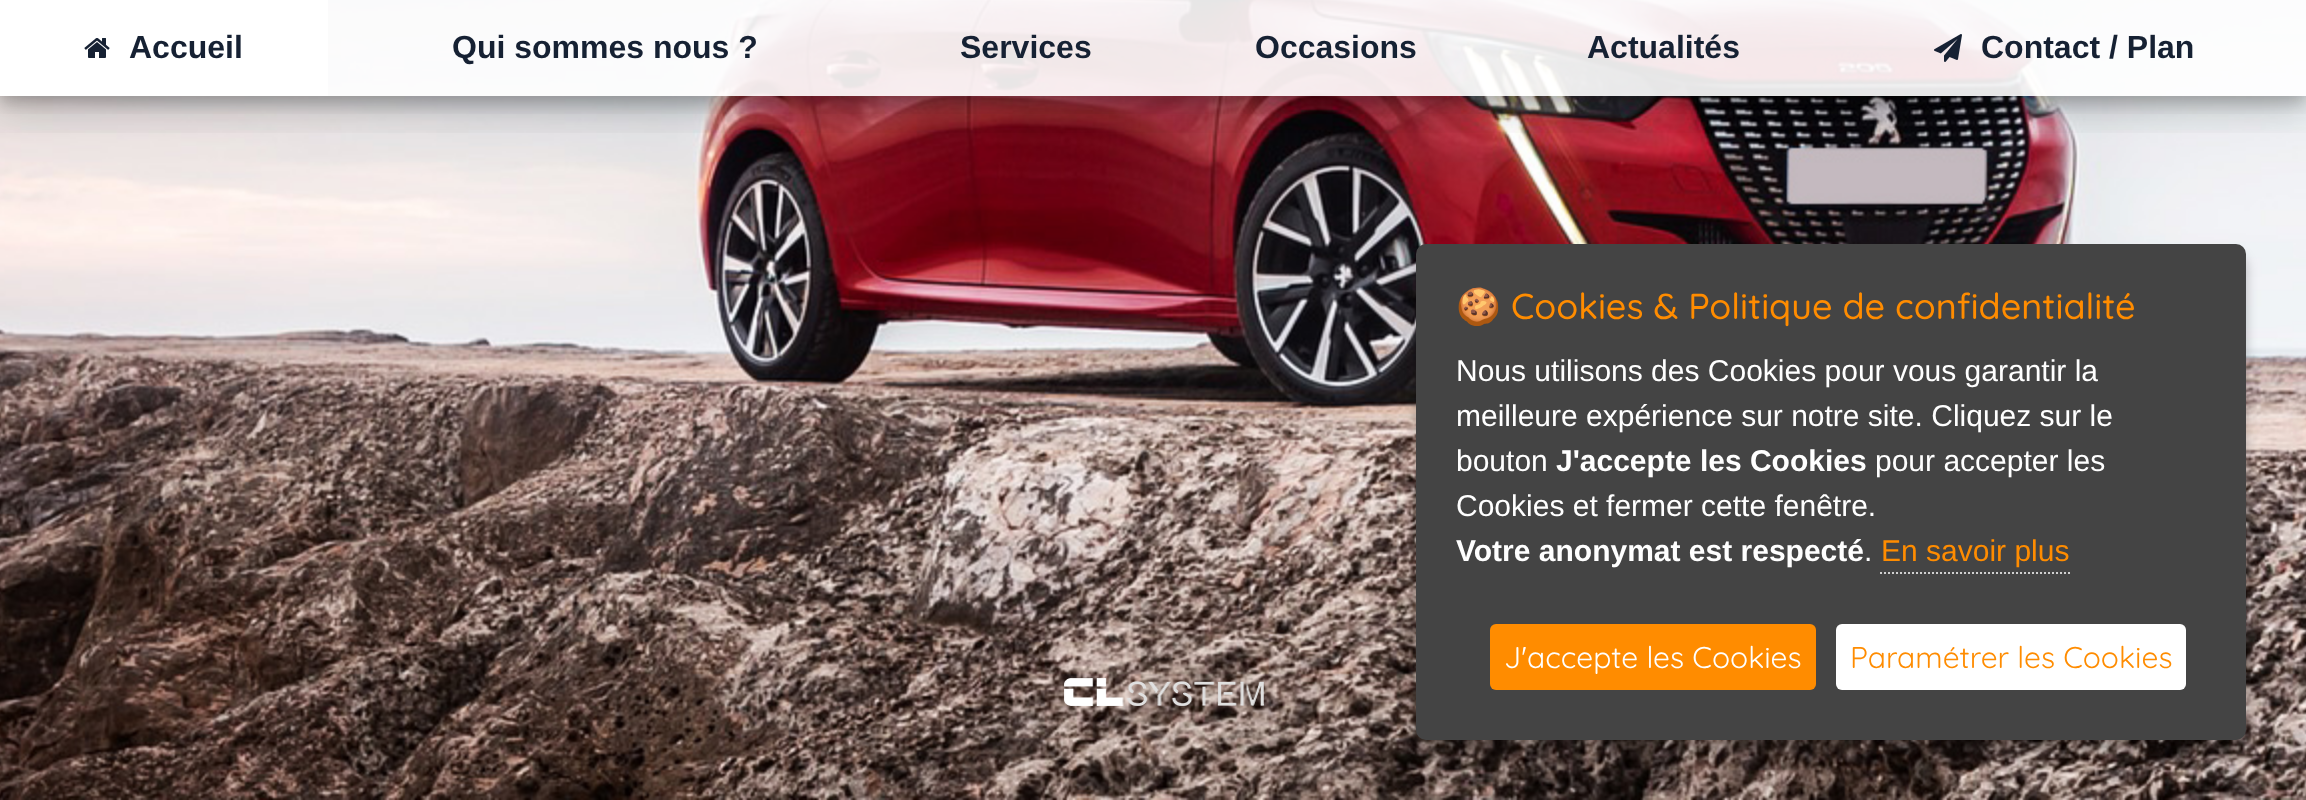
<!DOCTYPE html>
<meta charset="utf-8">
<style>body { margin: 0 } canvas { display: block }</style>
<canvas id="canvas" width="2306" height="800"></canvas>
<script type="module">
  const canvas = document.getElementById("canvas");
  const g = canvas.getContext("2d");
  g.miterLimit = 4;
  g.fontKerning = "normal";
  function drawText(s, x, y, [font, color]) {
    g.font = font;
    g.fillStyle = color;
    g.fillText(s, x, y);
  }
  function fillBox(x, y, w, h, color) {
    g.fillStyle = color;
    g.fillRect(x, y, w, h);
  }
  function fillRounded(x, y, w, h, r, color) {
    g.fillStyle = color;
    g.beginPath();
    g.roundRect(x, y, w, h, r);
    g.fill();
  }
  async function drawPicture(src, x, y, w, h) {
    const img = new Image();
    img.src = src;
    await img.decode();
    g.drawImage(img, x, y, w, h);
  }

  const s1 = ["bold 32px Liberation Sans", "#162133"];
  const s2 = ["36px Noto Color Emoji", "#FF8C00"];
  const s3 = ["500 36px Quicksand", "#FF8C00"];
  const s4 = ["30px Liberation Sans", "#FFFFFF"];
  const s5 = ["bold 30px Liberation Sans", "#FFFFFF"];
  const s6 = ["30px Liberation Sans", "#FF8C00"];
  const s7 = ["30px Quicksand", "#FFFFFF"];
  const s8 = ["30px Quicksand", "#FF8C00"];

  fillBox(0, 0, 2306, 800, "#FFFFFF");
  await drawPicture("pic1.png", 0, 0, 2306, 800);
  await drawPicture("pic2.png", 1064, 678, 200, 28);
  g.save();
  g.beginPath();
  g.rect(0, 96, 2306, 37);
  g.clip();
  g.fillStyle = "rgba(0, 0, 0, 0.19)";
  g.filter = "blur(20px)";
  g.beginPath();
  g.rect(0, 12, 2306, 96);
  g.fill();
  g.filter = "none";
  g.restore();
  g.save();
  g.beginPath();
  g.rect(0, 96, 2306, 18);
  g.clip();
  g.fillStyle = "rgba(0, 0, 0, 0.2)";
  g.filter = "blur(8px)";
  g.beginPath();
  g.rect(0, 8, 2306, 96);
  g.fill();
  g.filter = "none";
  g.restore();
  fillBox(328, 0, 1978, 96, "rgba(255, 255, 255, 0.9)");
  fillBox(0, 0, 328, 96, "#FFFFFF");
  await drawPicture("pic3.png", 84, 38, 26, 20);
  drawText("Accueil", 129, 58, s1);
  drawText("Qui sommes nous ?", 452, 58, s1);
  drawText("Services", 960, 58, s1);
  drawText("Occasions", 1255, 58, s1);
  drawText("Actualités", 1587, 58, s1);
  await drawPicture("pic4.png", 1934, 34, 28, 28);
  drawText("Contact / Plan", 1981, 58, s1);
  g.fillStyle = "rgba(0, 0, 0, 0.25)";
  g.filter = "blur(6px)";
  g.beginPath();
  g.roundRect(1416, 256, 830, 496, 10);
  g.fill();
  g.filter = "none";
  fillRounded(1416, 244, 830, 496, 10, "#444444");
  drawText("🍪", 1456, 319, s2);
  drawText("Cookies & Politique de confidentialité", 1511, 319, s3);
  drawText("Nous utilisons des Cookies pour vous garantir la", 1456, 381, s4);
  drawText("meilleure expérience sur notre site. Cliquez sur le", 1456, 426, s4);
  drawText("bouton", 1456, 471, s4);
  drawText("J'accepte les Cookies", 1556, 471, s5);
  drawText("pour accepter les", 1875, 471, s4);
  drawText("Cookies et fermer cette fenêtre.", 1456, 516, s4);
  drawText("Votre anonymat est respecté", 1456, 561, s5);
  drawText(".", 1864, 561, s4);
  drawText("En savoir plus", 1881, 561, s6);
  g.beginPath();
  g.moveTo(1880, 573);
  g.lineTo(2070, 573);
  g.strokeStyle = "#D0D0D0";
  g.lineWidth = 2;
  g.setLineDash([2, 2]);
  g.stroke();
  fillRounded(1490, 624, 326, 66, 6, "#FF8C00");
  drawText("J'accepte les Cookies", 1504, 668, s7);
  fillRounded(1836, 624, 350, 66, 6, "#FFFFFF");
  drawText("Paramétrer les Cookies", 1850, 668, s8);
</script>
